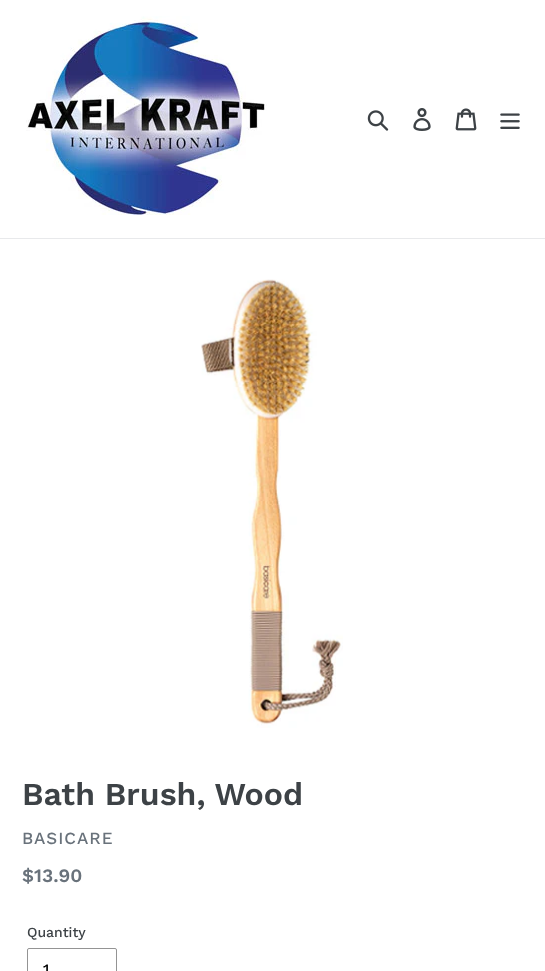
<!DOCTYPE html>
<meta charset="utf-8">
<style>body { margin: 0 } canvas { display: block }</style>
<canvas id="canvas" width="545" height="971"></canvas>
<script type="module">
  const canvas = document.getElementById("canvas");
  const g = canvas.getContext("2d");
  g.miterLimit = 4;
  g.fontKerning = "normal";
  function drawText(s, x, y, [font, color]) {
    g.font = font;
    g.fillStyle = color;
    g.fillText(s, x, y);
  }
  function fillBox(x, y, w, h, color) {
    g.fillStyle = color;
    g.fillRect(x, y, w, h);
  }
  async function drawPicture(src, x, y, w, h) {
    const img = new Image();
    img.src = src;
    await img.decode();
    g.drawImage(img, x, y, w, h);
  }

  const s1 = ["600 32px Work Sans", "#3D4246"];
  const s2 = ["500 17px Work Sans", "#69727B"];
  const s3 = ["600 19px Work Sans", "#69727B"];
  const s4 = ["500 14px Work Sans", "#3D4246"];
  const s5 = ["500 16px Work Sans", "#000000"];

  fillBox(0, 0, 545, 971, "#FFFFFF");
  fillBox(0, 238, 545, 1, "#E8E9EB");
  await drawPicture("pic1.png", 26, 16, 241, 199);
  await drawPicture("pic2.png", 367, 110, 22, 21);
  await drawPicture("pic3.png", 413, 108, 18, 23);
  await drawPicture("pic4.png", 455, 108, 22, 23);
  await drawPicture("pic5.png", 500, 113, 20, 16);
  await drawPicture("pic6.png", 201, 279, 142, 449);
  drawText("Bath Brush, Wood", 22, 805, s1);
  g.letterSpacing = "1px";
  drawText("BASICARE", 22, 844, s2);
  g.letterSpacing = "0px";
  drawText("$13.90", 22, 882, s3);
  drawText("Quantity", 27, 937, s4);
  g.beginPath();
  g.roundRect(27.5, 948.5, 89, 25, 1.5);
  g.strokeStyle = "#949494";
  g.stroke();
  drawText("1", 43, 975, s5);
</script>
